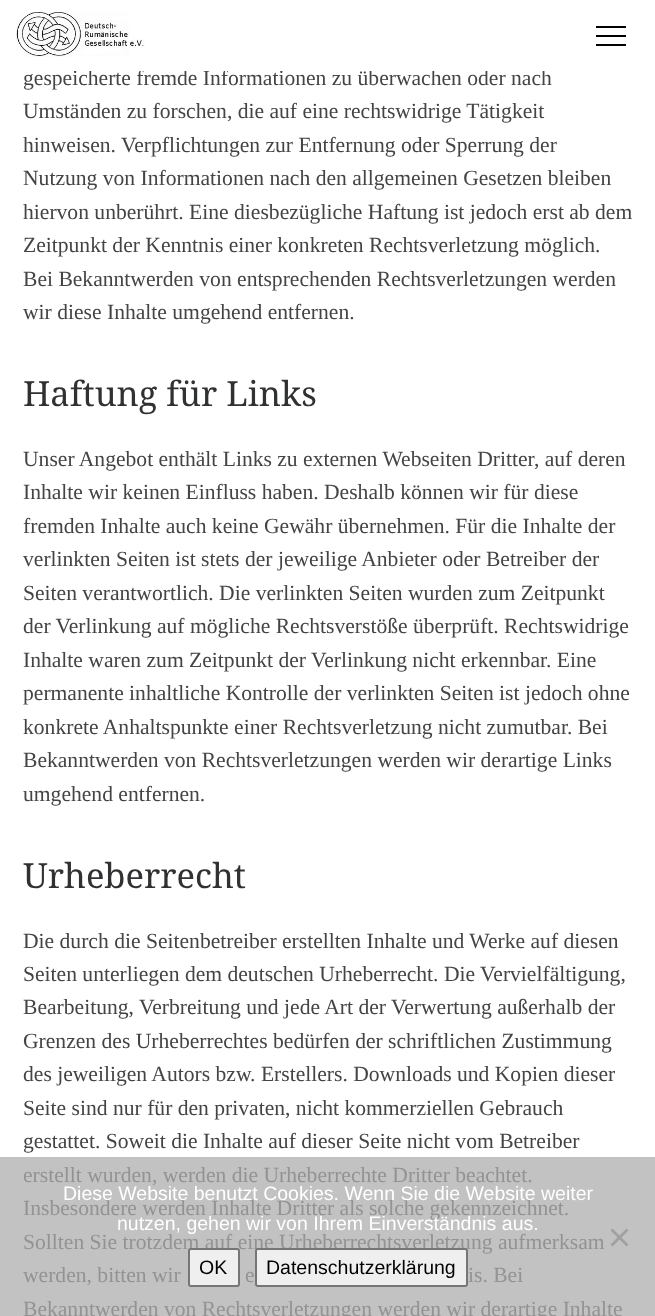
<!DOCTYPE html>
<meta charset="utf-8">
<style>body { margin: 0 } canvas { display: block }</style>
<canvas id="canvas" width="655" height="1316"></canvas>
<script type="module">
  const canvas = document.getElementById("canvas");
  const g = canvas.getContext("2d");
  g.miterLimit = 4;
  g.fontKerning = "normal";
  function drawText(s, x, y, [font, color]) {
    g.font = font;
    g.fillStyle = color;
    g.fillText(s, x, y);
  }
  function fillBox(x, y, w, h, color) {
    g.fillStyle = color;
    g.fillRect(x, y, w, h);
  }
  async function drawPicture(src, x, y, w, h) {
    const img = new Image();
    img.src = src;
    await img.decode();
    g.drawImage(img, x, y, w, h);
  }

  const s1 = ["21.6px Liberation Serif", "#444444"];
  const s2 = ["34.5px Noto Serif", "#303133"];
  const s3 = ["21.6px Liberation Serif", "#939393"];
  const s4 = ["19.5px Liberation Sans", "#FFFFFF"];
  const s5 = ["19.5px Liberation Sans", "#000000"];

  fillBox(0, 0, 655, 1316, "#FFFFFF");
  fillBox(0, 1157, 655, 159, "#C2C2C2");
  drawText("gespeicherte fremde Informationen zu überwachen oder nach", 23, 85, s1);
  fillBox(73, 69, 472, 2, "#FFFFFF");
  await drawPicture("pic1.png", 16, 12, 129, 45);
  fillBox(596, 26, 30, 2, "#000000");
  fillBox(596, 35, 30, 2, "#000000");
  fillBox(596, 44, 30, 2, "#000000");
  drawText("Umständen zu forschen, die auf eine rechtswidrige Tätigkeit", 23, 118, s1);
  drawText("hinweisen. Verpflichtungen zur Entfernung oder Sperrung der", 23, 152, s1);
  drawText("Nutzung von Informationen nach den allgemeinen Gesetzen bleiben", 23, 185, s1);
  drawText("hiervon unberührt. Eine diesbezügliche Haftung ist jedoch erst ab dem", 23, 219, s1);
  drawText("Zeitpunkt der Kenntnis einer konkreten Rechtsverletzung möglich.", 23, 252, s1);
  drawText("Bei Bekanntwerden von entsprechenden Rechtsverletzungen werden", 23, 286, s1);
  drawText("wir diese Inhalte umgehend entfernen.", 23, 319, s1);
  drawText("Haftung für Links", 23, 406, s2);
  drawText("Unser Angebot enthält Links zu externen Webseiten Dritter, auf deren", 23, 466, s1);
  drawText("Inhalte wir keinen Einfluss haben. Deshalb können wir für diese", 23, 499, s1);
  drawText("fremden Inhalte auch keine Gewähr übernehmen. Für die Inhalte der", 23, 533, s1);
  drawText("verlinkten Seiten ist stets der jeweilige Anbieter oder Betreiber der", 23, 566, s1);
  drawText("Seiten verantwortlich. Die verlinkten Seiten wurden zum Zeitpunkt", 23, 600, s1);
  drawText("der Verlinkung auf mögliche Rechtsverstöße überprüft. Rechtswidrige", 23, 633, s1);
  drawText("Inhalte waren zum Zeitpunkt der Verlinkung nicht erkennbar. Eine", 23, 667, s1);
  drawText("permanente inhaltliche Kontrolle der verlinkten Seiten ist jedoch ohne", 23, 700, s1);
  drawText("konkrete Anhaltspunkte einer Rechtsverletzung nicht zumutbar. Bei", 23, 734, s1);
  drawText("Bekanntwerden von Rechtsverletzungen werden wir derartige Links", 23, 767, s1);
  drawText("umgehend entfernen.", 23, 801, s1);
  drawText("Urheberrecht", 23, 888, s2);
  drawText("Die durch die Seitenbetreiber erstellten Inhalte und Werke auf diesen", 23, 948, s1);
  drawText("Seiten unterliegen dem deutschen Urheberrecht. Die Vervielfältigung,", 23, 981, s1);
  drawText("Bearbeitung, Verbreitung und jede Art der Verwertung außerhalb der", 23, 1014, s1);
  drawText("Grenzen des Urheberrechtes bedürfen der schriftlichen Zustimmung", 23, 1048, s1);
  drawText("des jeweiligen Autors bzw. Erstellers. Downloads und Kopien dieser", 23, 1081, s1);
  drawText("Seite sind nur für den privaten, nicht kommerziellen Gebrauch", 23, 1115, s1);
  drawText("gestattet. Soweit die Inhalte auf dieser Seite nicht vom Betreiber", 23, 1148, s1);
  drawText("erstellt wurden, werden die Urheberrechte Dritter beachtet.", 23, 1182, s3);
  drawText("Insbesondere werden Inhalte Dritter als solche gekennzeichnet.", 23, 1215, s3);
  drawText("Sollten Sie trotzdem auf eine Urheberrechtsverletzung aufmerksam", 23, 1249, s3);
  drawText("werden, bitten wir", 23, 1282, s3);
  drawText("e", 245, 1282, s3);
  drawText("is. Bei", 468, 1282, s3);
  drawText("Bekanntwerden von Rechtsverletzungen werden wir derartige Inhalte", 23, 1316, s3);
  drawText("Diese Website benutzt Cookies. Wenn Sie die Website weiter", 63, 1200, s4);
  drawText("nutzen, gehen wir von Ihrem Einverständnis aus.", 117, 1230, s4);
  g.fillStyle = "#A1A1A1";
  g.beginPath();
  g.moveTo(626.5, 1228.5);
  g.lineTo(628.5, 1230.5);
  g.lineTo(612.5, 1246.5);
  g.lineTo(610.5, 1244.5);
  g.closePath();
  g.fill();
  g.beginPath();
  g.moveTo(610.5, 1230.5);
  g.lineTo(612.5, 1228.5);
  g.lineTo(628.5, 1244.5);
  g.lineTo(626.5, 1246.5);
  g.closePath();
  g.fill();
  g.fillStyle = "#EFEFEF";
  g.beginPath();
  g.roundRect(189, 1249, 50, 37, 2);
  g.fill();
  g.strokeStyle = "#767676";
  g.lineWidth = 2;
  g.stroke();
  drawText("OK", 199, 1274, s5);
  g.fillStyle = "#EFEFEF";
  g.beginPath();
  g.roundRect(256, 1249, 211, 37, 2);
  g.fill();
  g.stroke();
  drawText("Datenschutzerklärung", 266, 1274, s5);
</script>
